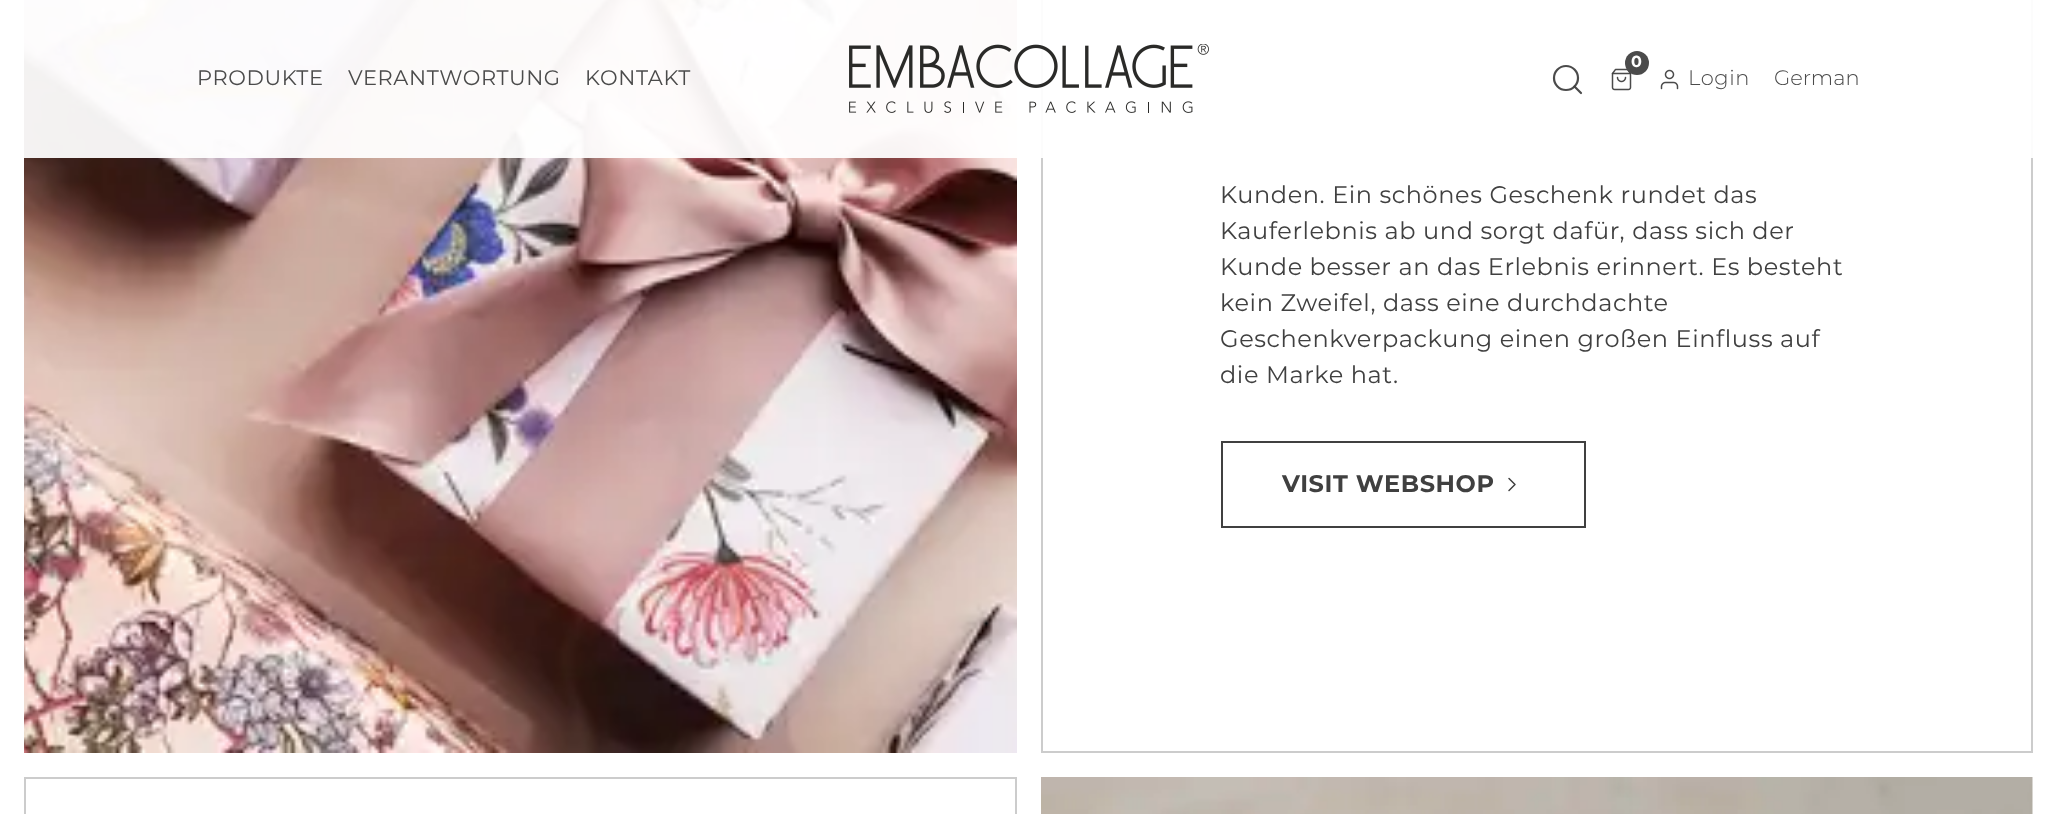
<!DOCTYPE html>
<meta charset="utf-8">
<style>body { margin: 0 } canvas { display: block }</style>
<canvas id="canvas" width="2056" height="814"></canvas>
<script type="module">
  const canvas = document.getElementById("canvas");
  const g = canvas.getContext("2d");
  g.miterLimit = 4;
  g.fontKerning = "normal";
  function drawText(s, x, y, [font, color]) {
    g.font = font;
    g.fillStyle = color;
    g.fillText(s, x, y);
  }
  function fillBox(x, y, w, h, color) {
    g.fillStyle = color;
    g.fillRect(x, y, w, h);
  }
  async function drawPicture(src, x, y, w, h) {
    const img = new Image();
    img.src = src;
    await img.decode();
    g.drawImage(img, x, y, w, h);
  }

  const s1 = ["bold 16px Montserrat", "#FFFFFF"];
  const s2 = ["21px Montserrat", "#4B4B4B"];
  const s3 = ["300 21px Montserrat", "#4B4B4B"];
  const s4 = ["24px Montserrat", "#404040"];
  const s5 = ["bold 24px Montserrat", "#404040"];

  fillBox(0, 0, 2056, 814, "#FFFFFF");
  await drawPicture("pic4.png", 24, 0, 993, 753);
  g.strokeStyle = "#CCCCCC";
  g.lineWidth = 2;
  g.strokeRect(1042, -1, 990, 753);
  fillBox(24, 0, 2009, 158, "rgba(255, 255, 255, 0.94)");
  await drawPicture("pic1.png", 849, 44, 360, 69);
  await drawPicture("pic2.png", 1611, 68, 21, 23);
  g.fillStyle = "#4B4B4B";
  g.beginPath();
  g.arc(1637, 63, 12, 0, Math.PI * 2);
  g.fill();
  g.letterSpacing = "0.6px";
  drawText("0", 1631, 67, s1);
  drawText("PRODUKTE", 197, 85, s2);
  drawText("VERANTWORTUNG", 348, 85, s2);
  drawText("KONTAKT", 585, 85, s2);
  g.beginPath();
  g.arc(1566, 78, 12, 0, Math.PI * 2);
  g.strokeStyle = "rgba(64, 64, 64, 0.94)";
  g.lineWidth = 2.2;
  g.stroke();
  g.beginPath();
  g.moveTo(1581, 93);
  g.lineTo(1574.5, 86.5);
  g.lineCap = "round";
  g.lineJoin = "round";
  g.stroke();
  await drawPicture("pic3.png", 1660, 69, 19, 21);
  drawText("Login", 1688, 85, s3);
  g.letterSpacing = "0px";
  drawText("German", 1774, 85, s3);
  g.letterSpacing = "0.6px";
  drawText("Kunden. Ein schönes Geschenk rundet das", 1220, 203, s4);
  drawText("Kauferlebnis ab und sorgt dafür, dass sich der", 1220, 239, s4);
  drawText("Kunde besser an das Erlebnis erinnert. Es besteht", 1220, 275, s4);
  drawText("kein Zweifel, dass eine durchdachte", 1220, 311, s4);
  drawText("Geschenkverpackung einen großen Einfluss auf", 1220, 347, s4);
  drawText("die Marke hat.", 1220, 383, s4);
  g.strokeStyle = "#404040";
  g.lineWidth = 2;
  g.lineJoin = "miter";
  g.strokeRect(1222, 442, 363, 85);
  drawText("VISIT WEBSHOP", 1282, 492, s5);
  g.beginPath();
  g.moveTo(1509, 490.5);
  g.lineTo(1515, 484.5);
  g.lineTo(1509, 478.5);
  g.lineWidth = 1.5;
  g.lineJoin = "round";
  g.stroke();
  g.strokeStyle = "#CCCCCC";
  g.lineWidth = 2;
  g.lineJoin = "miter";
  g.strokeRect(25, 778, 991, 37);
  await drawPicture("pic5.png", 1041, 777, 992, 37);
</script>
